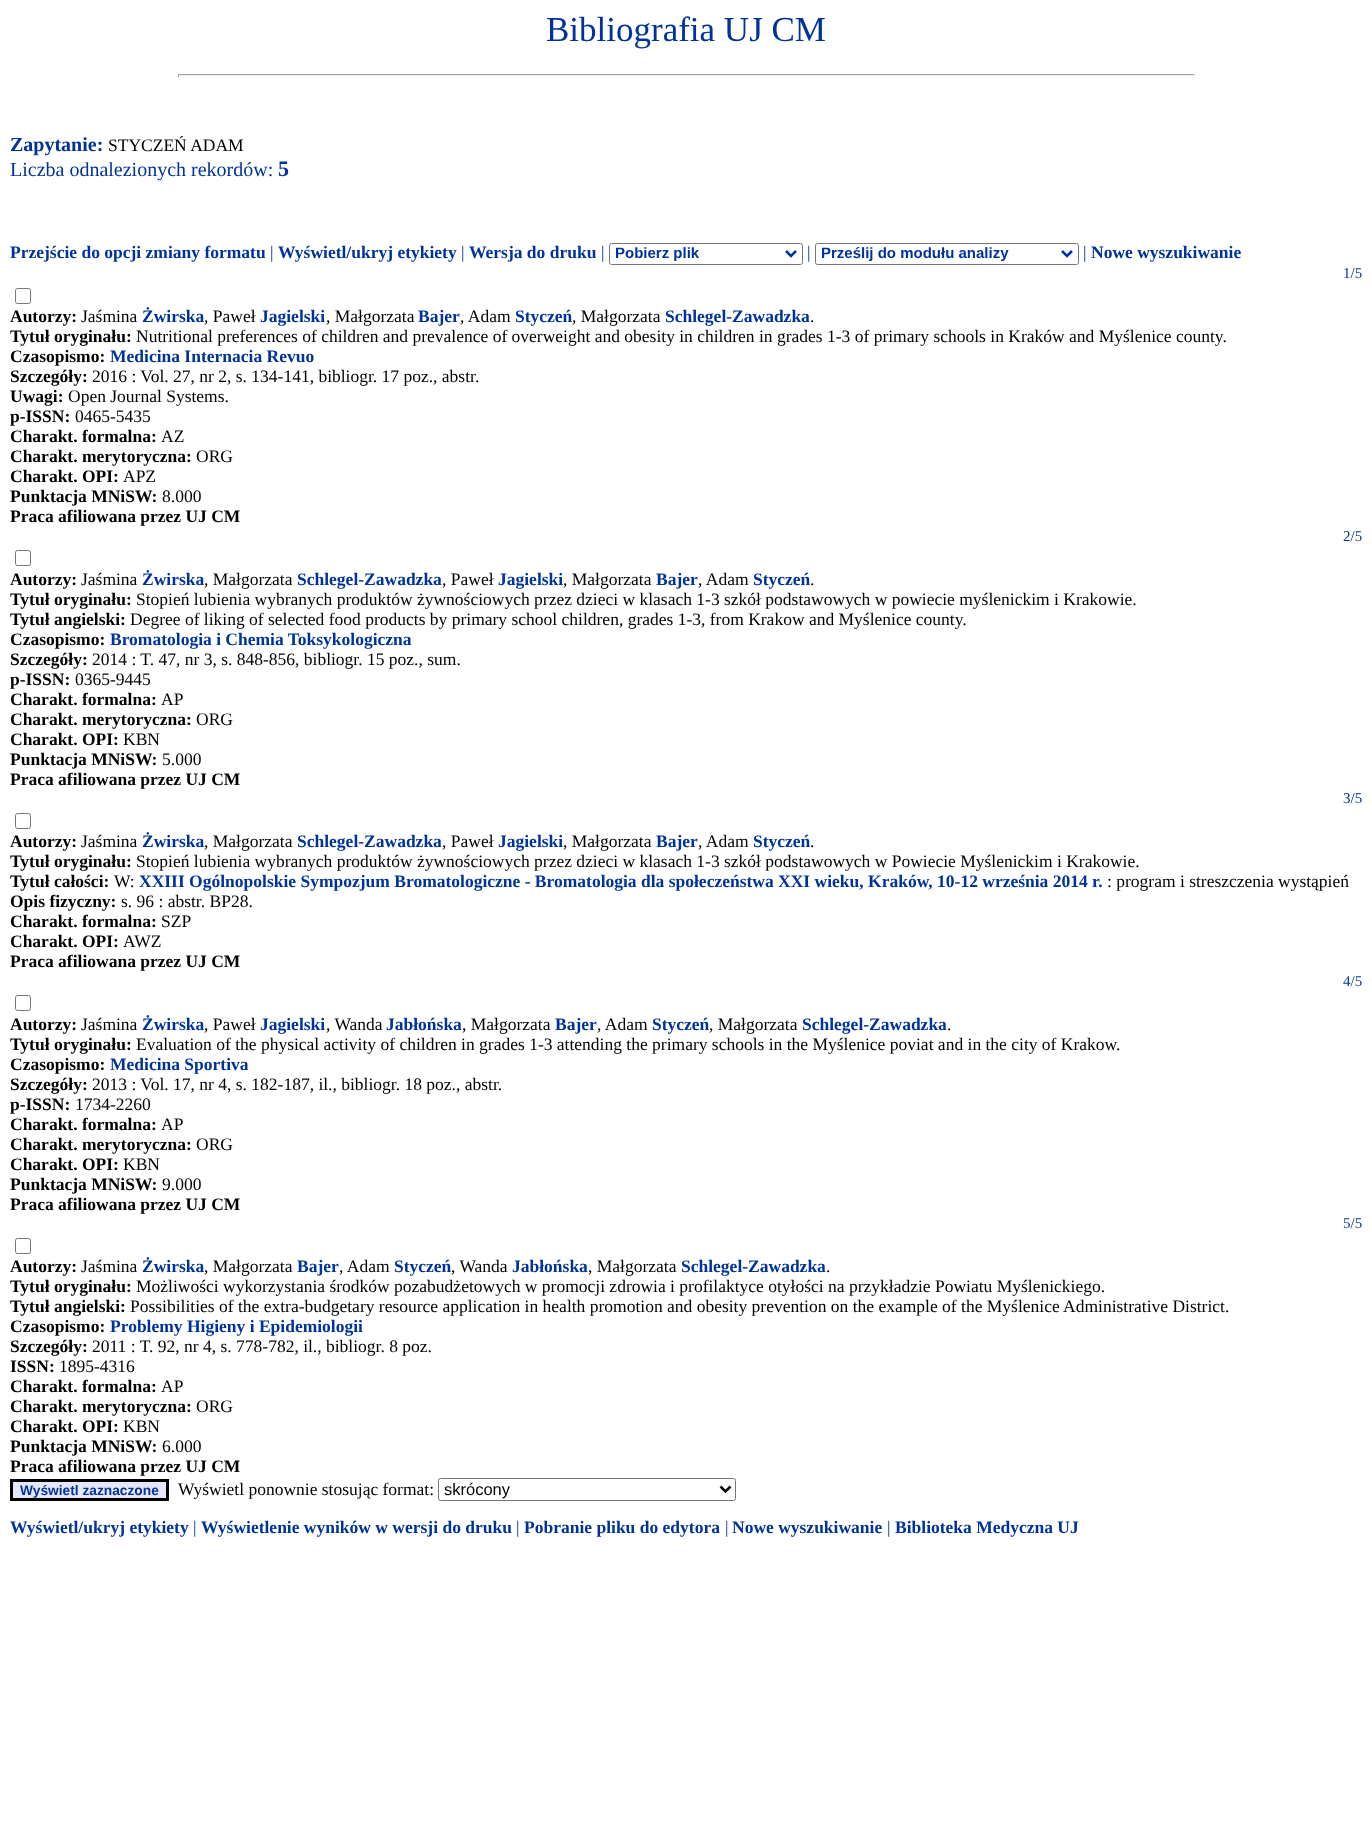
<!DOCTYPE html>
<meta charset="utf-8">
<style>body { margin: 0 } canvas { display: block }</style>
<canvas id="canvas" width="1372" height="1823"></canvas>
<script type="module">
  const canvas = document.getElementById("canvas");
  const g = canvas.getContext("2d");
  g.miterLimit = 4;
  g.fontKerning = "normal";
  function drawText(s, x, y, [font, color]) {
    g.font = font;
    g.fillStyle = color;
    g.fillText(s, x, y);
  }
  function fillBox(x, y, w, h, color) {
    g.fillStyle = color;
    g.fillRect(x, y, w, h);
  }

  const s1 = ["35px Liberation Serif", "#003399"];
  const s2 = ["17.5px Liberation Serif", "#000000"];
  const s3 = ["20px Liberation Serif", "#003399"];
  const s4 = ["bold 22px Liberation Serif", "#003399"];
  const s5 = ["bold 17.5px Liberation Serif", "#003399"];
  const s6 = ["17.5px Liberation Serif", "#003399"];
  const s7 = ["bold 15px Liberation Sans", "#003399"];
  const s8 = ["15px Liberation Serif", "#003399"];
  const s9 = ["bold 17.5px Liberation Serif", "#000000"];
  const s10 = ["bold 13.75px Liberation Sans", "#003399"];
  const s11 = ["16.5px Liberation Sans", "#000000"];
  const s12 = ["bold 20px Liberation Serif", "#003399"];

  fillBox(0, 0, 1372, 1823, "#FFFFFF");
  drawText("Bibliografia UJ CM", 546, 41, s1);
  fillBox(178, 74, 1017, 1, "#9F9F9F");
  fillBox(1194, 74, 1, 3, "#EEEEEE");
  fillBox(178, 75, 1017, 1, "#EEEEEE");
  fillBox(178, 74, 1, 3, "#9F9F9F");
  drawText("STYCZEŃ ADAM", 108, 151, s2);
  drawText("Liczba odnalezionych rekordów:", 10, 176, s3);
  drawText("5", 278, 176, s4);
  drawText("Przejście do opcji zmiany formatu", 10, 258, s5);
  drawText("|", 270, 258, s6);
  drawText("Wyświetl/ukryj etykiety", 278, 258, s5);
  drawText("|", 461, 258, s6);
  drawText("Wersja do druku", 469, 258, s5);
  drawText("|", 601, 258, s6);
  g.beginPath();
  g.roundRect(609.5, 243.5, 193, 21, 2);
  g.strokeStyle = "#767676";
  g.stroke();
  g.beginPath();
  g.moveTo(786, 251);
  g.lineTo(791, 256);
  g.lineTo(796, 251);
  g.strokeStyle = "#003399";
  g.lineWidth = 2.5;
  g.stroke();
  drawText("Pobierz plik", 615, 258, s7);
  drawText("|", 807, 258, s6);
  g.beginPath();
  g.roundRect(815.5, 243.5, 263, 21, 2);
  g.strokeStyle = "#767676";
  g.lineWidth = 1;
  g.stroke();
  g.beginPath();
  g.moveTo(1062, 251);
  g.lineTo(1067, 256);
  g.lineTo(1072, 251);
  g.strokeStyle = "#003399";
  g.lineWidth = 2.5;
  g.stroke();
  drawText("Prześlij do modułu analizy", 821, 258, s7);
  drawText("|", 1083, 258, s6);
  drawText("Nowe wyszukiwanie", 1091, 258, s5);
  drawText("1/5", 1343, 278, s8);
  g.beginPath();
  g.roundRect(15.5, 288.5, 15, 15, 2);
  g.strokeStyle = "#767676";
  g.lineWidth = 1;
  g.stroke();
  drawText("Autorzy:", 10, 322, s9);
  drawText("Jaśmina", 81, 322, s2);
  drawText("Żwirska", 142, 322, s5);
  drawText(", Paweł", 204, 322, s2);
  drawText("Jagielski", 260, 322, s5);
  drawText(", Małgorzata", 326, 322, s2);
  drawText("Bajer", 418, 322, s5);
  drawText(", Adam", 460, 322, s2);
  drawText("Styczeń", 515, 322, s5);
  drawText(", Małgorzata", 572, 322, s2);
  drawText("Schlegel-Zawadzka", 665, 322, s5);
  drawText(".", 810, 322, s2);
  drawText("Tytuł oryginału:", 10, 342, s9);
  drawText("Nutritional preferences of children and prevalence of overweight and obesity in children in grades 1-3 of primary schools in Kraków and Myślenice county.", 136, 342, s2);
  drawText("Czasopismo:", 10, 362, s9);
  drawText("Medicina Internacia Revuo", 110, 362, s5);
  drawText("Szczegóły:", 10, 382, s9);
  drawText("2016 : Vol. 27, nr 2, s. 134-141, bibliogr. 17 poz., abstr.", 92, 382, s2);
  drawText("Uwagi:", 10, 402, s9);
  drawText("Open Journal Systems.", 68, 402, s2);
  drawText("p-ISSN:", 10, 422, s9);
  drawText("0465-5435", 75, 422, s2);
  drawText("Charakt. formalna:", 10, 442, s9);
  drawText("AZ", 161, 442, s2);
  drawText("Charakt. merytoryczna:", 10, 462, s9);
  drawText("ORG", 196, 462, s2);
  drawText("Charakt. OPI:", 10, 482, s9);
  drawText("APZ", 123, 482, s2);
  drawText("Punktacja MNiSW:", 10, 502, s9);
  drawText("8.000", 162, 502, s2);
  drawText("Praca afiliowana przez UJ CM", 10, 522, s9);
  drawText("2/5", 1343, 541, s8);
  g.beginPath();
  g.roundRect(15.5, 550.5, 15, 15, 2);
  g.stroke();
  drawText("Autorzy:", 10, 585, s9);
  drawText("Jaśmina", 81, 585, s2);
  drawText("Żwirska", 142, 585, s5);
  drawText(", Małgorzata", 204, 585, s2);
  drawText("Schlegel-Zawadzka", 297, 585, s5);
  drawText(", Paweł", 442, 585, s2);
  drawText("Jagielski", 498, 585, s5);
  drawText(", Małgorzata", 563, 585, s2);
  drawText("Bajer", 656, 585, s5);
  drawText(", Adam", 698, 585, s2);
  drawText("Styczeń", 753, 585, s5);
  drawText(".", 810, 585, s2);
  drawText("Tytuł oryginału:", 10, 605, s9);
  drawText("Stopień lubienia wybranych produktów żywnościowych przez dzieci w klasach 1-3 szkół podstawowych w powiecie myślenickim i Krakowie.", 136, 605, s2);
  drawText("Tytuł angielski:", 10, 625, s9);
  drawText("Degree of liking of selected food products by primary school children, grades 1-3, from Krakow and Myślenice county.", 130, 625, s2);
  drawText("Czasopismo:", 10, 645, s9);
  drawText("Bromatologia i Chemia Toksykologiczna", 110, 645, s5);
  drawText("Szczegóły:", 10, 665, s9);
  drawText("2014 : T. 47, nr 3, s. 848-856, bibliogr. 15 poz., sum.", 92, 665, s2);
  drawText("p-ISSN:", 10, 685, s9);
  drawText("0365-9445", 75, 685, s2);
  drawText("Charakt. formalna:", 10, 705, s9);
  drawText("AP", 161, 705, s2);
  drawText("Charakt. merytoryczna:", 10, 725, s9);
  drawText("ORG", 196, 725, s2);
  drawText("Charakt. OPI:", 10, 745, s9);
  drawText("KBN", 123, 745, s2);
  drawText("Punktacja MNiSW:", 10, 765, s9);
  drawText("5.000", 162, 765, s2);
  drawText("Praca afiliowana przez UJ CM", 10, 785, s9);
  drawText("3/5", 1343, 803, s8);
  g.beginPath();
  g.roundRect(15.5, 813.5, 15, 15, 2);
  g.stroke();
  drawText("Autorzy:", 10, 847, s9);
  drawText("Jaśmina", 81, 847, s2);
  drawText("Żwirska", 142, 847, s5);
  drawText(", Małgorzata", 204, 847, s2);
  drawText("Schlegel-Zawadzka", 297, 847, s5);
  drawText(", Paweł", 442, 847, s2);
  drawText("Jagielski", 498, 847, s5);
  drawText(", Małgorzata", 563, 847, s2);
  drawText("Bajer", 656, 847, s5);
  drawText(", Adam", 698, 847, s2);
  drawText("Styczeń", 753, 847, s5);
  drawText(".", 810, 847, s2);
  drawText("Tytuł oryginału:", 10, 867, s9);
  drawText("Stopień lubienia wybranych produktów żywnościowych przez dzieci w klasach 1-3 szkół podstawowych w Powiecie Myślenickim i Krakowie.", 136, 867, s2);
  drawText("Tytuł całości:", 10, 887, s9);
  drawText("W:", 114, 887, s2);
  drawText("XXIII Ogólnopolskie Sympozjum Bromatologiczne - Bromatologia dla społeczeństwa XXI wieku, Kraków, 10-12 września 2014 r.", 139, 887, s5);
  drawText(": program i streszczenia wystąpień", 1107, 887, s2);
  drawText("Opis fizyczny:", 10, 907, s9);
  drawText("s. 96 : abstr. BP28.", 121, 907, s2);
  drawText("Charakt. formalna:", 10, 927, s9);
  drawText("SZP", 161, 927, s2);
  drawText("Charakt. OPI:", 10, 947, s9);
  drawText("AWZ", 123, 947, s2);
  drawText("Praca afiliowana przez UJ CM", 10, 967, s9);
  drawText("4/5", 1343, 986, s8);
  g.beginPath();
  g.roundRect(15.5, 995.5, 15, 15, 2);
  g.stroke();
  drawText("Autorzy:", 10, 1030, s9);
  drawText("Jaśmina", 81, 1030, s2);
  drawText("Żwirska", 142, 1030, s5);
  drawText(", Paweł", 204, 1030, s2);
  drawText("Jagielski", 260, 1030, s5);
  drawText(", Wanda", 326, 1030, s2);
  drawText("Jabłońska", 386, 1030, s5);
  drawText(", Małgorzata", 462, 1030, s2);
  drawText("Bajer", 555, 1030, s5);
  drawText(", Adam", 597, 1030, s2);
  drawText("Styczeń", 652, 1030, s5);
  drawText(", Małgorzata", 709, 1030, s2);
  drawText("Schlegel-Zawadzka", 802, 1030, s5);
  drawText(".", 947, 1030, s2);
  drawText("Tytuł oryginału:", 10, 1050, s9);
  drawText("Evaluation of the physical activity of children in grades 1-3 attending the primary schools in the Myślenice poviat and in the city of Krakow.", 136, 1050, s2);
  drawText("Czasopismo:", 10, 1070, s9);
  drawText("Medicina Sportiva", 110, 1070, s5);
  drawText("Szczegóły:", 10, 1090, s9);
  drawText("2013 : Vol. 17, nr 4, s. 182-187, il., bibliogr. 18 poz., abstr.", 92, 1090, s2);
  drawText("p-ISSN:", 10, 1110, s9);
  drawText("1734-2260", 75, 1110, s2);
  drawText("Charakt. formalna:", 10, 1130, s9);
  drawText("AP", 161, 1130, s2);
  drawText("Charakt. merytoryczna:", 10, 1150, s9);
  drawText("ORG", 196, 1150, s2);
  drawText("Charakt. OPI:", 10, 1170, s9);
  drawText("KBN", 123, 1170, s2);
  drawText("Punktacja MNiSW:", 10, 1190, s9);
  drawText("9.000", 162, 1190, s2);
  drawText("Praca afiliowana przez UJ CM", 10, 1210, s9);
  drawText("5/5", 1343, 1228, s8);
  g.beginPath();
  g.roundRect(15.5, 1238.5, 15, 15, 2);
  g.stroke();
  drawText("Autorzy:", 10, 1272, s9);
  drawText("Jaśmina", 81, 1272, s2);
  drawText("Żwirska", 142, 1272, s5);
  drawText(", Małgorzata", 204, 1272, s2);
  drawText("Bajer", 297, 1272, s5);
  drawText(", Adam", 339, 1272, s2);
  drawText("Styczeń", 394, 1272, s5);
  drawText(", Wanda", 451, 1272, s2);
  drawText("Jabłońska", 512, 1272, s5);
  drawText(", Małgorzata", 588, 1272, s2);
  drawText("Schlegel-Zawadzka", 681, 1272, s5);
  drawText(".", 826, 1272, s2);
  drawText("Tytuł oryginału:", 10, 1292, s9);
  drawText("Możliwości wykorzystania środków pozabudżetowych w promocji zdrowia i profilaktyce otyłości na przykładzie Powiatu Myślenickiego.", 136, 1292, s2);
  drawText("Tytuł angielski:", 10, 1312, s9);
  drawText("Possibilities of the extra-budgetary resource application in health promotion and obesity prevention on the example of the Myślenice Administrative District.", 130, 1312, s2);
  drawText("Czasopismo:", 10, 1332, s9);
  drawText("Problemy Higieny i Epidemiologii", 110, 1332, s5);
  drawText("Szczegóły:", 10, 1352, s9);
  drawText("2011 : T. 92, nr 4, s. 778-782, il., bibliogr. 8 poz.", 92, 1352, s2);
  drawText("ISSN:", 10, 1372, s9);
  drawText("1895-4316", 59, 1372, s2);
  drawText("Charakt. formalna:", 10, 1392, s9);
  drawText("AP", 161, 1392, s2);
  drawText("Charakt. merytoryczna:", 10, 1412, s9);
  drawText("ORG", 196, 1412, s2);
  drawText("Charakt. OPI:", 10, 1432, s9);
  drawText("KBN", 123, 1432, s2);
  drawText("Punktacja MNiSW:", 10, 1452, s9);
  drawText("6.000", 162, 1452, s2);
  drawText("Praca afiliowana przez UJ CM", 10, 1472, s9);
  g.fillStyle = "#E6E6FA";
  g.beginPath();
  g.rect(11.5, 1480.5, 156, 19);
  g.fill();
  g.strokeStyle = "#000000";
  g.lineWidth = 3;
  g.stroke();
  drawText("Wyświetl zaznaczone", 20, 1495, s10);
  drawText("Wyświetl ponownie stosując format:", 178, 1495, s2);
  g.beginPath();
  g.roundRect(438.5, 1478.5, 297, 22, 2);
  g.strokeStyle = "#767676";
  g.lineWidth = 1;
  g.stroke();
  g.beginPath();
  g.moveTo(720.5, 1486.5);
  g.lineTo(725.5, 1491.5);
  g.lineTo(730.5, 1486.5);
  g.strokeStyle = "#000000";
  g.lineWidth = 2.5;
  g.stroke();
  drawText("skrócony", 444, 1495, s11);
  drawText("Wyświetl/ukryj etykiety", 10, 1533, s5);
  drawText("|", 193, 1533, s6);
  drawText("Wyświetlenie wyników w wersji do druku", 201, 1533, s5);
  drawText("|", 516, 1533, s6);
  drawText("Pobranie pliku do edytora", 524, 1533, s5);
  drawText("|", 725, 1533, s6);
  drawText("Nowe wyszukiwanie", 732, 1533, s5);
  drawText("|", 887, 1533, s6);
  drawText("Biblioteka Medyczna UJ", 895, 1533, s5);
  drawText("Zapytanie:", 10, 151, s12);
</script>
